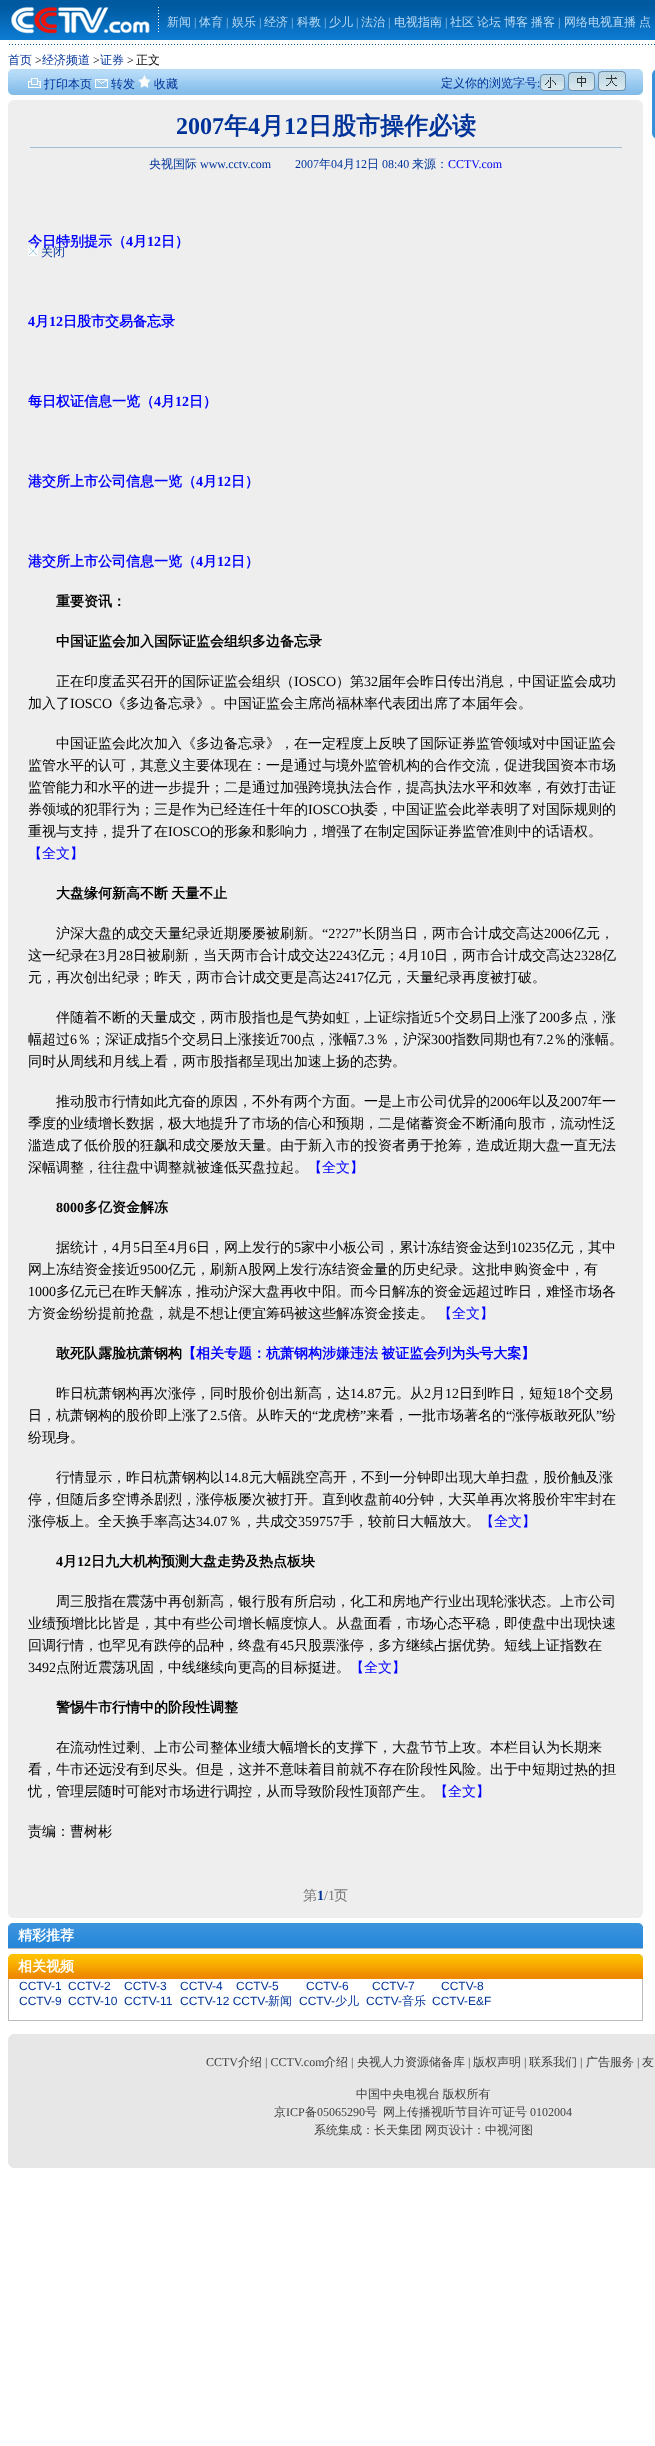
<!DOCTYPE html>
<meta charset="utf-8">
<style>body { margin: 0 } canvas { display: block }</style>
<canvas id="canvas" width="655" height="2446"></canvas>
<script type="module">
  const canvas = document.getElementById("canvas");
  const g = canvas.getContext("2d");
  g.miterLimit = 4;
  g.fontKerning = "normal";
  function drawText(s, x, y, [font, color]) {
    g.font = font;
    g.fillStyle = color;
    g.fillText(s, x, y);
  }
  function fillBox(x, y, w, h, color) {
    g.fillStyle = color;
    g.fillRect(x, y, w, h);
  }
  async function drawPicture(src, x, y, w, h) {
    const img = new Image();
    img.src = src;
    await img.decode();
    g.drawImage(img, x, y, w, h);
  }

  const s1 = ["500 12px WenQuanYi Zen Hei", "#B8DBF7"];
  const s2 = ["12px Liberation Serif", "#9ACAF0"];
  const s3 = ["500 12px WenQuanYi Zen Hei", "#003399"];
  const s4 = ["12px Liberation Serif", "#000000"];
  const s5 = ["500 12px WenQuanYi Zen Hei", "#000000"];
  const s6 = ["12px Liberation Serif", "#003399"];
  const s7 = ["bold 24px Liberation Serif", "#003399"];
  const s8 = ["bold 24px WenQuanYi Zen Hei", "#003399"];
  const s9 = ["12px Liberation Serif", "#0000EE"];
  const s10 = ["bold 14px WenQuanYi Zen Hei", "#0000FF"];
  const s11 = ["bold 14px Liberation Serif", "#0000FF"];
  const s12 = ["bold 14px WenQuanYi Zen Hei", "#000000"];
  const s13 = ["500 14px WenQuanYi Zen Hei", "#000000"];
  const s14 = ["14px Liberation Serif", "#000000"];
  const s15 = ["500 14px WenQuanYi Zen Hei", "#0000FF"];
  const s16 = ["bold 14px Liberation Serif", "#000000"];
  const s17 = ["500 14px WenQuanYi Zen Hei", "#777777"];
  const s18 = ["bold 14px Liberation Serif", "#003399"];
  const s19 = ["14px Liberation Serif", "#777777"];
  const s20 = ["bold 14px WenQuanYi Zen Hei", "#FFFFFF"];
  const s21 = ["12px Liberation Sans", "#003399"];
  const s22 = ["12px Liberation Serif", "#404040"];
  const s23 = ["500 12px WenQuanYi Zen Hei", "#404040"];

  fillBox(0, 0, 655, 2446, "#FFFFFF");
  await drawPicture("pic1.png", 0, 0, 655, 40);
  await drawPicture("pic2.png", 10, 2, 142, 37);
  await drawPicture("pic3.png", 158, 7, 1, 25);
  drawText("新闻", 167, 26, s1);
  drawText("|", 194, 26, s2);
  drawText("体育", 199, 26, s1);
  drawText("|", 226, 26, s2);
  drawText("娱乐", 232, 26, s1);
  drawText("|", 259, 26, s2);
  drawText("经济", 264, 26, s1);
  drawText("|", 291, 26, s2);
  drawText("科教", 297, 26, s1);
  drawText("|", 324, 26, s2);
  drawText("少儿", 329, 26, s1);
  drawText("|", 356, 26, s2);
  drawText("法治", 361, 26, s1);
  drawText("|", 388, 26, s2);
  drawText("电视指南", 394, 26, s1);
  drawText("|", 445, 26, s2);
  drawText("社区", 450, 26, s1);
  drawText("论坛", 477, 26, s1);
  drawText("博客", 504, 26, s1);
  drawText("播客", 531, 26, s1);
  drawText("|", 558, 26, s2);
  drawText("网络电视直播", 564, 26, s1);
  drawText("点", 639, 26, s1);
  await drawPicture("pic4.png", 9, 44, 646, 1);
  drawText("首页", 8, 64, s3);
  drawText(">", 35, 64, s4);
  drawText("经济频道", 42, 64, s3);
  drawText(">", 93, 64, s4);
  drawText("证券", 100, 64, s3);
  drawText(">", 127, 64, s4);
  drawText("正文", 136, 64, s5);
  await drawPicture("pic5.png", 13, 69, 625, 26);
  await drawPicture("pic6.png", 8, 69, 5, 26);
  await drawPicture("pic7.png", 28, 78, 13, 10);
  drawText("打印本页", 44, 88, s3);
  await drawPicture("pic8.png", 95, 79, 13, 9);
  drawText("转发", 111, 88, s3);
  await drawPicture("pic9.png", 138, 75, 13, 13);
  drawText("收藏", 154, 88, s3);
  fillBox(8, 100, 635, 1818, "#EEEEEE");
  await drawPicture("pic10.png", 28, 246, 10, 10);
  drawText("关闭", 41, 256, s3);
  await drawPicture("pic11.png", 638, 69, 5, 26);
  drawText("定义你的浏览字号", 441, 87, s3);
  drawText(":", 537, 87, s6);
  await drawPicture("pic12.png", 540, 74, 25, 17);
  await drawPicture("pic13.png", 568, 72, 27, 19);
  await drawPicture("pic14.png", 598, 71, 28, 20);
  await drawPicture("pic15.png", 8, 100, 7, 7);
  await drawPicture("pic16.png", 639, 100, 4, 7);
  drawText("2007", 176, 134, s7);
  drawText("年", 224, 134, s8);
  drawText("4", 248, 134, s7);
  drawText("月", 260, 134, s8);
  drawText("12", 284, 134, s7);
  drawText("日股市操作必读", 308, 134, s8);
  fillBox(30, 147, 592, 1, "#A1BED4");
  drawText("央视国际", 149, 168, s3);
  drawText("www.cctv.com", 200, 168, s6);
  drawText("2007", 295, 168, s6);
  drawText("年", 319, 168, s3);
  drawText("04", 331, 168, s6);
  drawText("月", 343, 168, s3);
  drawText("12", 355, 168, s6);
  drawText("日", 367, 168, s3);
  drawText("08:40", 382, 168, s6);
  drawText("来源：", 412, 168, s3);
  drawText("CCTV.com", 448, 168, s9);
  drawText("今日特别提示（", 28, 246, s10);
  drawText("4", 126, 246, s11);
  drawText("月", 133, 246, s10);
  drawText("12", 147, 246, s11);
  drawText("日）", 161, 246, s10);
  drawText("4", 28, 326, s11);
  drawText("月", 35, 326, s10);
  drawText("12", 49, 326, s11);
  drawText("日股市交易备忘录", 63, 326, s10);
  drawText("每日权证信息一览（", 28, 406, s10);
  drawText("4", 154, 406, s11);
  drawText("月", 161, 406, s10);
  drawText("12", 175, 406, s11);
  drawText("日）", 189, 406, s10);
  drawText("港交所上市公司信息一览（", 28, 486, s10);
  drawText("4", 196, 486, s11);
  drawText("月", 203, 486, s10);
  drawText("12", 217, 486, s11);
  drawText("日）", 231, 486, s10);
  drawText("港交所上市公司信息一览（", 28, 566, s10);
  drawText("4", 196, 566, s11);
  drawText("月", 203, 566, s10);
  drawText("12", 217, 566, s11);
  drawText("日）", 231, 566, s10);
  drawText("重要资讯：", 56, 606, s12);
  drawText("中国证监会加入国际证监会组织多边备忘录", 56, 646, s12);
  drawText("正在印度孟买召开的国际证监会组织（", 56, 686, s13);
  drawText("IOSCO", 294, 686, s14);
  drawText("）第", 336, 686, s13);
  drawText("32", 364, 686, s14);
  drawText("届年会昨日传出消息，中国证监会成功", 378, 686, s13);
  drawText("加入了", 28, 708, s13);
  drawText("IOSCO", 70, 708, s14);
  drawText("《多边备忘录》。中国证监会主席尚福林率代表团出席了本届年会。", 112, 708, s13);
  drawText("中国证监会此次加入《多边备忘录》，在一定程度上反映了国际证券监管领域对中国证监会", 56, 748, s13);
  drawText("监管水平的认可，其意义主要体现在：一是通过与境外监管机构的合作交流，促进我国资本市场", 28, 770, s13);
  drawText("监管能力和水平的进一步提升；二是通过加强跨境执法合作，提高执法水平和效率，有效打击证", 28, 792, s13);
  drawText("券领域的犯罪行为；三是作为已经连任十年的", 28, 814, s13);
  drawText("IOSCO", 308, 814, s14);
  drawText("执委，中国证监会此举表明了对国际规则的", 350, 814, s13);
  drawText("重视与支持，提升了在", 28, 836, s13);
  drawText("IOSCO", 168, 836, s14);
  drawText("的形象和影响力，增强了在制定国际证券监管准则中的话语权。", 210, 836, s13);
  drawText("【全文】", 28, 858, s15);
  g.wordSpacing = "-1px";
  drawText("大盘缘何新高不断 天量不止", 56, 898, s12);
  g.wordSpacing = "0px";
  drawText("沪深大盘的成交天量纪录近期屡屡被刷新。", 56, 938, s13);
  drawText("“2?27”", 322, 938, s14);
  drawText("长阴当日，两市合计成交高达", 362, 938, s13);
  drawText("2006", 544, 938, s14);
  drawText("亿元，", 572, 938, s13);
  drawText("这一纪录在", 28, 960, s13);
  drawText("3", 98, 960, s14);
  drawText("月", 105, 960, s13);
  drawText("28", 119, 960, s14);
  drawText("日被刷新，当天两市合计成交达", 133, 960, s13);
  drawText("2243", 329, 960, s14);
  drawText("亿元；", 357, 960, s13);
  drawText("4", 399, 960, s14);
  drawText("月", 406, 960, s13);
  drawText("10", 420, 960, s14);
  drawText("日，两市合计成交高达", 434, 960, s13);
  drawText("2328", 574, 960, s14);
  drawText("亿", 602, 960, s13);
  drawText("元，再次创出纪录；昨天，两市合计成交更是高达", 28, 982, s13);
  drawText("2417", 336, 982, s14);
  drawText("亿元，天量纪录再度被打破。", 364, 982, s13);
  drawText("伴随着不断的天量成交，两市股指也是气势如虹，上证综指近", 56, 1022, s13);
  drawText("5", 434, 1022, s14);
  drawText("个交易日上涨了", 441, 1022, s13);
  drawText("200", 539, 1022, s14);
  drawText("多点，涨", 560, 1022, s13);
  drawText("幅超过", 28, 1044, s13);
  drawText("6", 70, 1044, s14);
  drawText("％；深证成指", 77, 1044, s13);
  drawText("5", 161, 1044, s14);
  drawText("个交易日上涨接近", 168, 1044, s13);
  drawText("700", 280, 1044, s14);
  drawText("点，涨幅", 301, 1044, s13);
  drawText("7.3", 357, 1044, s14);
  drawText("％，沪深", 375, 1044, s13);
  drawText("300", 431, 1044, s14);
  drawText("指数同期也有", 452, 1044, s13);
  drawText("7.2", 536, 1044, s14);
  drawText("％的涨幅。", 553, 1044, s13);
  drawText("同时从周线和月线上看，两市股指都呈现出加速上扬的态势。", 28, 1066, s13);
  drawText("推动股市行情如此亢奋的原因，不外有两个方面。一是上市公司优异的", 56, 1106, s13);
  drawText("2006", 490, 1106, s14);
  drawText("年以及", 518, 1106, s13);
  drawText("2007", 560, 1106, s14);
  drawText("年一", 588, 1106, s13);
  drawText("季度的业绩增长数据，极大地提升了市场的信心和预期，二是储蓄资金不断涌向股市，流动性泛", 28, 1128, s13);
  drawText("滥造成了低价股的狂飙和成交屡放天量。由于新入市的投资者勇于抢筹，造成近期大盘一直无法", 28, 1150, s13);
  drawText("深幅调整，往往盘中调整就被逢低买盘拉起。", 28, 1172, s13);
  drawText("【全文】", 308, 1172, s15);
  drawText("8000", 56, 1212, s16);
  drawText("多亿资金解冻", 84, 1212, s12);
  drawText("据统计，", 56, 1252, s13);
  drawText("4", 112, 1252, s14);
  drawText("月", 119, 1252, s13);
  drawText("5", 133, 1252, s14);
  drawText("日至", 140, 1252, s13);
  drawText("4", 168, 1252, s14);
  drawText("月", 175, 1252, s13);
  drawText("6", 189, 1252, s14);
  drawText("日，网上发行的", 196, 1252, s13);
  drawText("5", 294, 1252, s14);
  drawText("家中小板公司，累计冻结资金达到", 301, 1252, s13);
  drawText("10235", 511, 1252, s14);
  drawText("亿元，其中", 546, 1252, s13);
  drawText("网上冻结资金接近", 28, 1274, s13);
  drawText("9500", 140, 1274, s14);
  drawText("亿元，刷新", 168, 1274, s13);
  drawText("A", 238, 1274, s14);
  drawText("股网上发行冻结资金量的历史纪录。这批申购资金中，有", 248, 1274, s13);
  drawText("1000", 28, 1296, s14);
  drawText("多亿元已在昨天解冻，推动沪深大盘再收中阳。而今日解冻的资金远超过昨日，难怪市场各", 56, 1296, s13);
  drawText("方资金纷纷提前抢盘，就是不想让便宜筹码被这些解冻资金接走。", 28, 1318, s13);
  drawText("【全文】", 438, 1318, s15);
  drawText("敢死队露脸杭萧钢构", 56, 1358, s12);
  g.wordSpacing = "-1px";
  drawText("【相关专题：杭萧钢构涉嫌违法 被证监会列为头号大案】", 182, 1358, s10);
  g.wordSpacing = "0px";
  drawText("昨日杭萧钢构再次涨停，同时股价创出新高，达", 56, 1398, s13);
  drawText("14.87", 350, 1398, s14);
  drawText("元。从", 382, 1398, s13);
  drawText("2", 424, 1398, s14);
  drawText("月", 431, 1398, s13);
  drawText("12", 445, 1398, s14);
  drawText("日到昨日，短短", 459, 1398, s13);
  drawText("18", 557, 1398, s14);
  drawText("个交易", 571, 1398, s13);
  drawText("日，杭萧钢构的股价即上涨了", 28, 1420, s13);
  drawText("2.5", 210, 1420, s14);
  drawText("倍。从昨天的", 228, 1420, s13);
  drawText("“", 312, 1420, s14);
  drawText("龙虎榜", 318, 1420, s13);
  drawText("”", 360, 1420, s14);
  drawText("来看，一批市场著名的", 366, 1420, s13);
  drawText("“", 506, 1420, s14);
  drawText("涨停板敢死队", 512, 1420, s13);
  drawText("”", 596, 1420, s14);
  drawText("纷", 602, 1420, s13);
  drawText("纷现身。", 28, 1442, s13);
  drawText("行情显示，昨日杭萧钢构以", 56, 1482, s13);
  drawText("14.8", 224, 1482, s14);
  drawText("元大幅跳空高开，不到一分钟即出现大单扫盘，股价触及涨", 249, 1482, s13);
  drawText("停，但随后多空博杀剧烈，涨停板屡次被打开。直到收盘前", 28, 1504, s13);
  drawText("40", 392, 1504, s14);
  drawText("分钟，大买单再次将股价牢牢封在", 406, 1504, s13);
  drawText("涨停板上。全天换手率高达", 28, 1526, s13);
  drawText("34.07", 196, 1526, s14);
  drawText("％，共成交", 228, 1526, s13);
  drawText("359757", 298, 1526, s14);
  drawText("手，较前日大幅放大。", 340, 1526, s13);
  drawText("【全文】", 480, 1526, s15);
  drawText("4", 56, 1566, s16);
  drawText("月", 63, 1566, s12);
  drawText("12", 77, 1566, s16);
  drawText("日九大机构预测大盘走势及热点板块", 91, 1566, s12);
  drawText("周三股指在震荡中再创新高，银行股有所启动，化工和房地产行业出现轮涨状态。上市公司", 56, 1606, s13);
  drawText("业绩预增比比皆是，其中有些公司增长幅度惊人。从盘面看，市场心态平稳，即使盘中出现快速", 28, 1628, s13);
  drawText("回调行情，也罕见有跌停的品种，终盘有", 28, 1650, s13);
  drawText("45", 280, 1650, s14);
  drawText("只股票涨停，多方继续占据优势。短线上证指数在", 294, 1650, s13);
  drawText("3492", 28, 1672, s14);
  drawText("点附近震荡巩固，中线继续向更高的目标挺进。", 56, 1672, s13);
  drawText("【全文】", 350, 1672, s15);
  drawText("警惕牛市行情中的阶段性调整", 56, 1712, s12);
  drawText("在流动性过剩、上市公司整体业绩大幅增长的支撑下，大盘节节上攻。本栏目认为长期来", 56, 1752, s13);
  drawText("看，牛市还远没有到尽头。但是，这并不意味着目前就不存在阶段性风险。出于中短期过热的担", 28, 1774, s13);
  drawText("忧，管理层随时可能对市场进行调控，从而导致阶段性顶部产生。", 28, 1796, s13);
  drawText("【全文】", 434, 1796, s15);
  drawText("责编：曹树彬", 28, 1836, s13);
  drawText("第", 303, 1900, s17);
  drawText("1", 317, 1900, s18);
  drawText("/1", 324, 1900, s19);
  drawText("页", 334, 1900, s17);
  await drawPicture("pic17.png", 8, 1914, 7, 4);
  await drawPicture("pic18.png", 636, 1911, 7, 7);
  await drawPicture("pic19.png", 8, 1923, 635, 25);
  await drawPicture("pic20.png", 638, 1923, 5, 8);
  await drawPicture("pic21.png", 8, 1923, 5, 8);
  drawText("精彩推荐", 18, 1940, s20);
  fillBox(8, 1948, 635, 1, "#BCBCBC");
  await drawPicture("pic22.png", 8, 1954, 635, 25);
  await drawPicture("pic23.png", 638, 1954, 5, 8);
  await drawPicture("pic24.png", 8, 1954, 5, 8);
  drawText("相关视频", 18, 1971, s20);
  fillBox(642, 1979, 1, 42, "#BCBCBC");
  fillBox(8, 2020, 635, 1, "#BCBCBC");
  fillBox(8, 1979, 1, 42, "#BCBCBC");
  drawText("CCTV-1", 19, 1990, s21);
  drawText("CCTV-2", 68, 1990, s21);
  drawText("CCTV-3", 124, 1990, s21);
  drawText("CCTV-4", 180, 1990, s21);
  drawText("CCTV-5", 236, 1990, s21);
  drawText("CCTV-6", 306, 1990, s21);
  drawText("CCTV-7", 372, 1990, s21);
  drawText("CCTV-8", 441, 1990, s21);
  drawText("CCTV-9", 19, 2005, s21);
  drawText("CCTV-10", 68, 2005, s21);
  drawText("CCTV-11", 124, 2005, s21);
  drawText("CCTV-12 CCTV-", 180, 2005, s21);
  drawText("新闻", 268, 2005, s3);
  drawText("CCTV-", 299, 2005, s21);
  drawText("少儿", 335, 2005, s3);
  drawText("CCTV-", 366, 2005, s21);
  drawText("音乐", 402, 2005, s3);
  drawText("CCTV-E&F", 432, 2005, s21);
  await drawPicture("pic25.png", 652, 69, 3, 69);
  await drawPicture("pic26.png", 8, 2034, 647, 134);
  drawText("CCTV", 206, 2066, s22);
  drawText("介绍", 238, 2066, s23);
  drawText("| CCTV.com", 265, 2066, s22);
  drawText("介绍", 324, 2066, s23);
  drawText("|", 351, 2066, s22);
  drawText("央视人力资源储备库", 357, 2066, s23);
  drawText("|", 468, 2066, s22);
  drawText("版权声明", 473, 2066, s23);
  drawText("|", 524, 2066, s22);
  drawText("联系我们", 529, 2066, s23);
  drawText("|", 580, 2066, s22);
  drawText("广告服务", 586, 2066, s23);
  drawText("|", 637, 2066, s22);
  drawText("友", 642, 2066, s23);
  g.wordSpacing = "-1px";
  drawText("中国中央电视台 版权所有", 356, 2098, s23);
  g.wordSpacing = "0px";
  drawText("京", 274, 2116, s23);
  drawText("ICP", 286, 2116, s22);
  drawText("备", 305, 2116, s23);
  drawText("05065290", 317, 2116, s22);
  drawText("号", 365, 2116, s23);
  drawText("网上传播视听节目许可证号", 383, 2116, s23);
  drawText("0102004", 530, 2116, s22);
  drawText("系统集成：长天集团", 314, 2134, s23);
  drawText("网页设计：中视河图", 425, 2134, s23);
</script>
